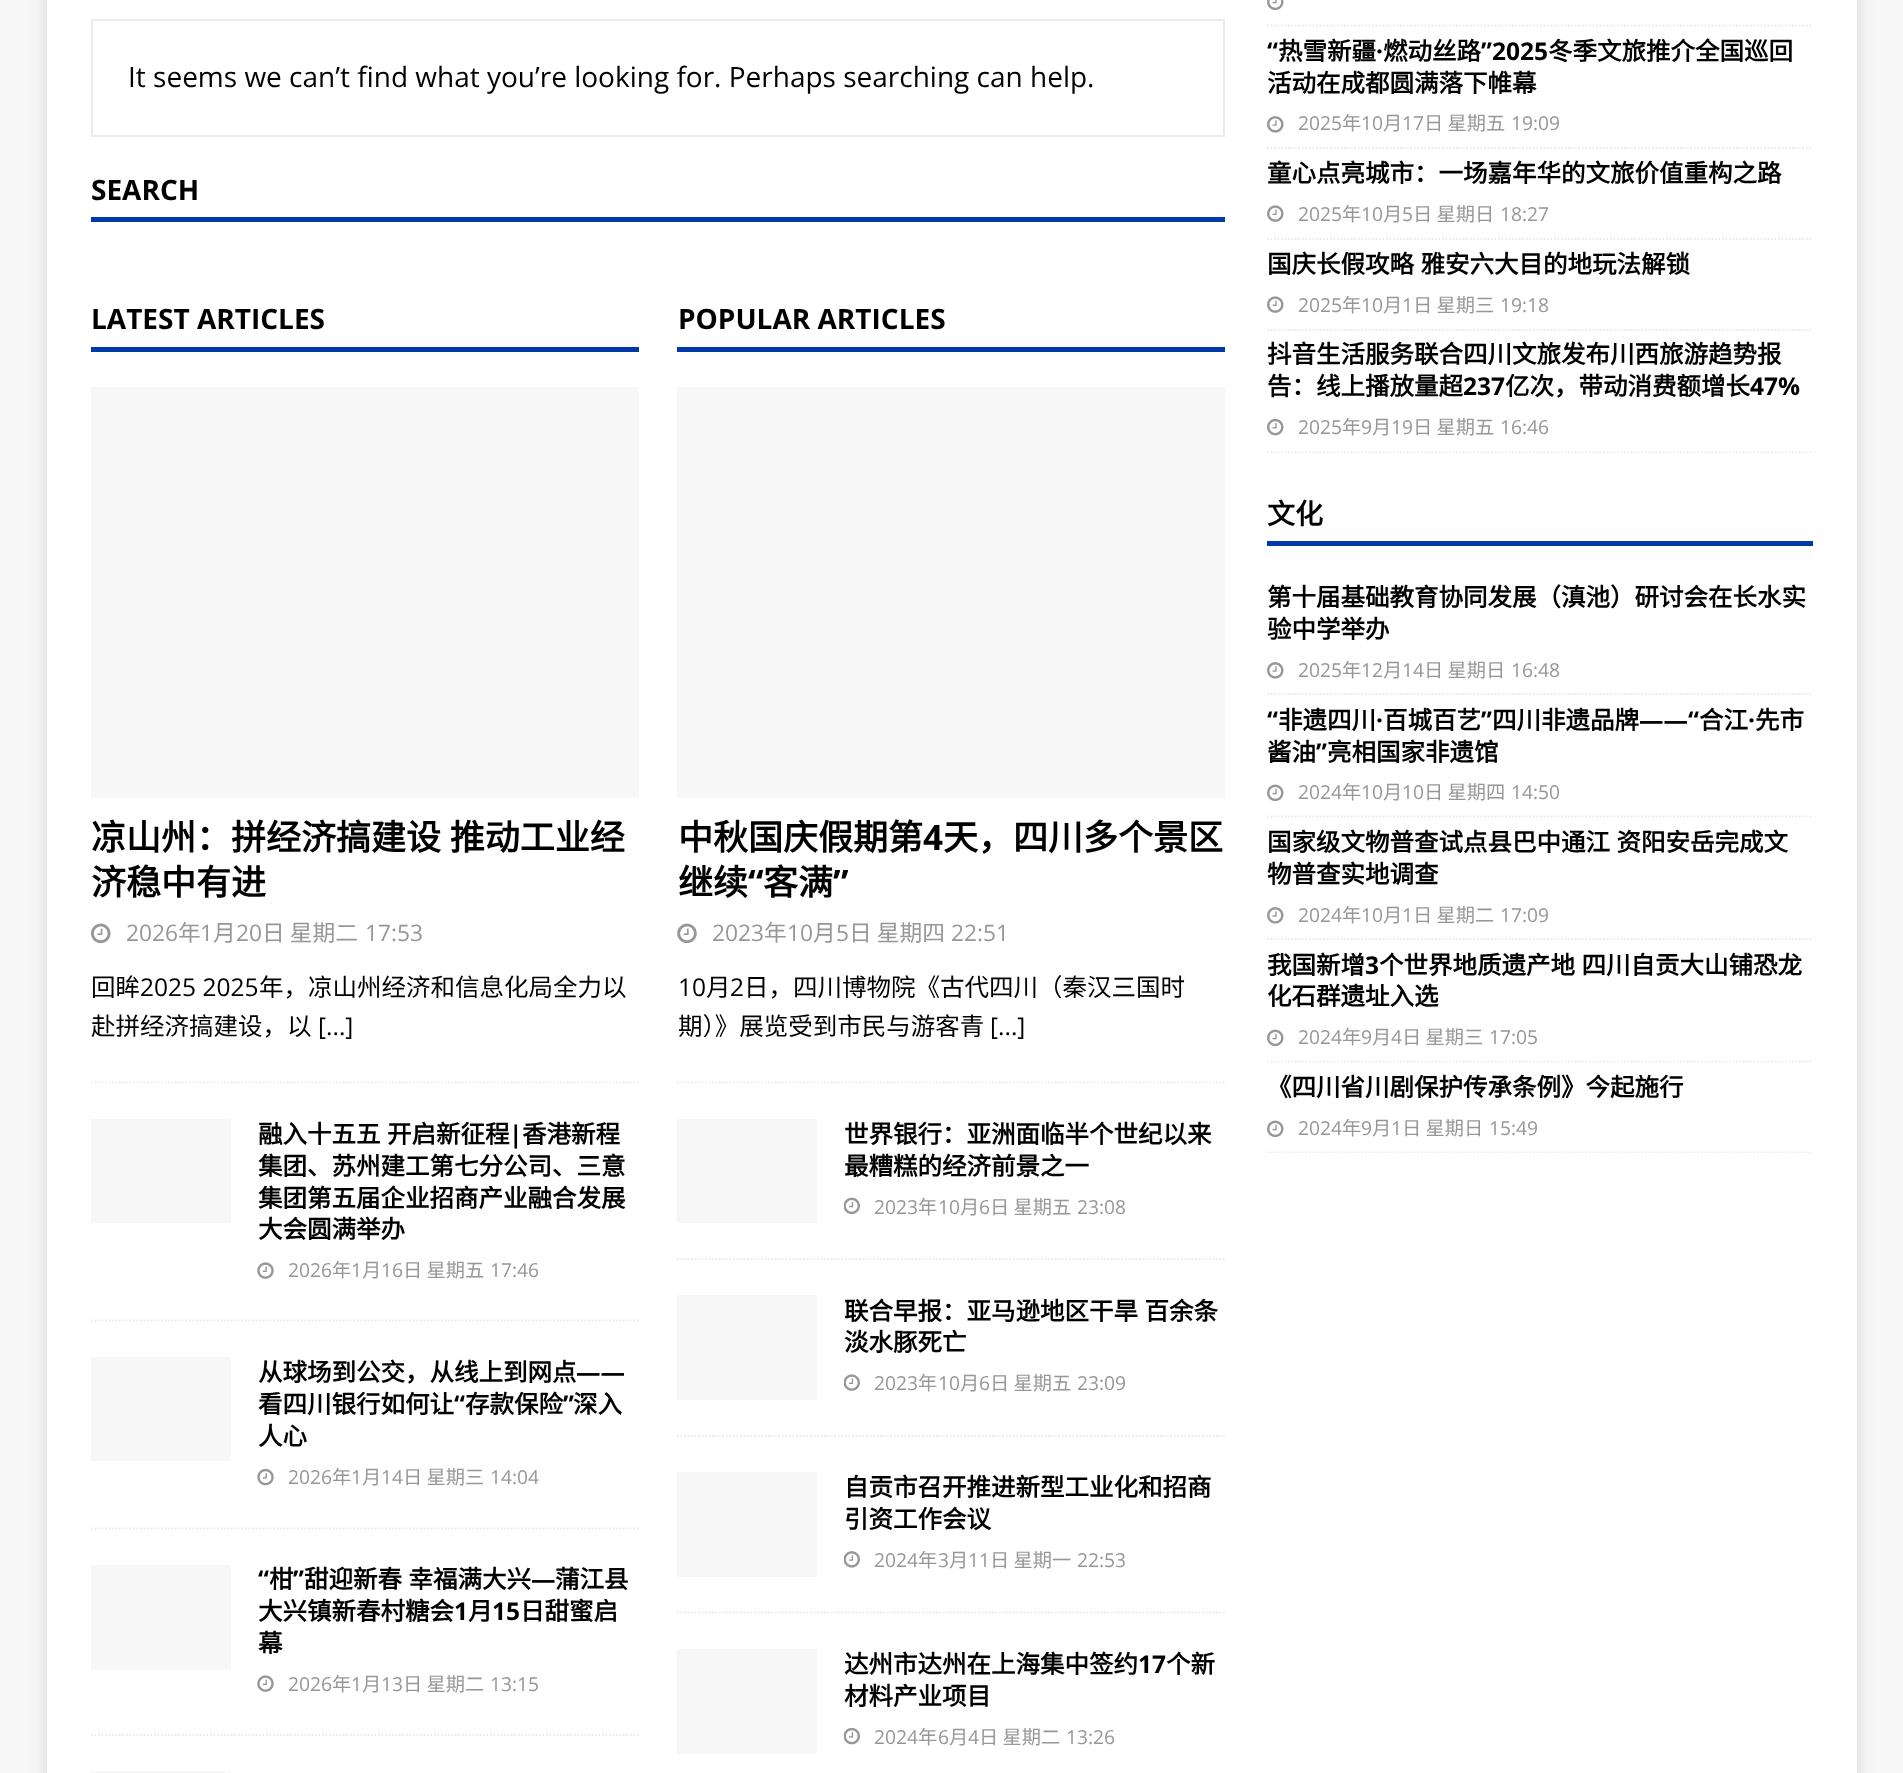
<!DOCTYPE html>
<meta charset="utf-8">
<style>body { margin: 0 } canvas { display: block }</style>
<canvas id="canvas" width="1903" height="1773"></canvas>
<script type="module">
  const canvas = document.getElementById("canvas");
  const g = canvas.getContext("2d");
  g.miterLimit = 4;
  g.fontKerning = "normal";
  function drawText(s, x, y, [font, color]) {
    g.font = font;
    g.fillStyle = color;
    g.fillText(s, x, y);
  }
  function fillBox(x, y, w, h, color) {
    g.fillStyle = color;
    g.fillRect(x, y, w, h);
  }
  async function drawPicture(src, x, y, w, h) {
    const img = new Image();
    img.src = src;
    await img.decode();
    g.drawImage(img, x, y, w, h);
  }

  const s1 = ["28px Open Sans", "#000000"];
  const s2 = ["bold 28px Open Sans", "#000000"];
  const s3 = ["bold 35px Noto Sans CJK SC", "#000000"];
  const s4 = ["22.75px Open Sans", "#979797"];
  const s5 = ["22.75px Noto Sans CJK SC", "#979797"];
  const s6 = ["24.5px Noto Sans CJK SC", "#000000"];
  const s7 = ["24.5px Open Sans", "#000000"];
  const s8 = ["bold 24.5px Noto Sans CJK SC", "#000000"];
  const s9 = ["bold 24.5px Open Sans", "#000000"];
  const s10 = ["19.25px Open Sans", "#979797"];
  const s11 = ["19.25px Noto Sans CJK SC", "#979797"];
  const s12 = ["bold 35px Open Sans", "#000000"];
  const s13 = ["bold 28px Noto Sans CJK SC", "#000000"];

  fillBox(0, 0, 1903, 1773, "#F7F7F7");
  g.fillStyle = "rgba(50, 50, 50, 0.17)";
  g.filter = "blur(9px)";
  g.beginPath();
  g.rect(47, -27, 1810, 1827);
  g.fill();
  g.filter = "none";
  fillBox(47, 0, 1810, 1773, "#FFFFFF");
  g.strokeStyle = "#EBEBEB";
  g.lineWidth = 2;
  g.strokeRect(92, 20, 1132, 116);
  drawText("It seems we can’t find what you’re looking for. Perhaps searching can help.", 128, 87, s1);
  fillBox(91, 217, 1134, 5, "#0139A8");
  drawText("SEARCH", 91, 200, s2);
  fillBox(91, 347, 548, 5, "#0139A8");
  drawText("LATEST ARTICLES", 91, 329, s2);
  g.beginPath();
  g.moveTo(91, 1082.5);
  g.lineTo(639, 1082.5);
  g.lineWidth = 1.8;
  g.setLineDash([1.75, 1.75]);
  g.stroke();
  fillBox(91, 387, 548, 411, "#F7F7F7");
  g.wordSpacing = "1px";
  drawText("凉山州：拼经济搞建设 推动工业经", 91, 850, s3);
  g.wordSpacing = "0px";
  drawText("济稳中有进", 91, 895, s3);
  await drawPicture("pic1.png", 91, 923, 20, 21);
  drawText("2026", 126, 941, s4);
  drawText("年", 178, 941, s5);
  drawText("1", 200, 941, s4);
  drawText("月", 213, 941, s5);
  drawText("20", 236, 941, s4);
  drawText("日 星期二", 262, 941, s5);
  drawText("17:53", 365, 941, s4);
  drawText("回眸", 91, 996, s6);
  drawText("2025 2025", 140, 996, s7);
  drawText("年，凉山州经济和信息化局全力以", 259, 996, s6);
  drawText("赴拼经济搞建设，以", 91, 1035, s6);
  drawText("[...]", 318, 1035, s7);
  g.beginPath();
  g.moveTo(91, 1320.5);
  g.lineTo(639, 1320.5);
  g.stroke();
  fillBox(91, 1119, 140, 104, "#F7F7F7");
  g.wordSpacing = "1px";
  drawText("融入十五五 开启新征程", 258, 1143, s8);
  g.wordSpacing = "0px";
  drawText("|", 509, 1143, s9);
  drawText("香港新程", 522, 1143, s8);
  drawText("集团、苏州建工第七分公司、三意", 258, 1175, s8);
  drawText("集团第五届企业招商产业融合发展", 258, 1207, s8);
  drawText("大会圆满举办", 258, 1238, s8);
  await drawPicture("pic2.png", 257, 1262, 17, 17);
  drawText("2026", 288, 1277, s10);
  drawText("年", 332, 1277, s11);
  drawText("1", 351, 1277, s10);
  drawText("月", 362, 1277, s11);
  drawText("16", 381, 1277, s10);
  drawText("日 星期五", 403, 1277, s11);
  drawText("17:46", 490, 1277, s10);
  g.beginPath();
  g.moveTo(91, 1528.5);
  g.lineTo(639, 1528.5);
  g.stroke();
  fillBox(91, 1357, 140, 104, "#F7F7F7");
  drawText("从球场到公交，从线上到网点", 258, 1381, s8);
  drawText("——", 576, 1381, s9);
  drawText("看四川银行如何让", 258, 1413, s8);
  drawText("“", 454, 1413, s9);
  drawText("存款保险", 465, 1413, s8);
  drawText("”", 563, 1413, s9);
  drawText("深入", 573, 1413, s8);
  drawText("人心", 258, 1445, s8);
  await drawPicture("pic3.png", 257, 1468, 17, 18);
  drawText("2026", 288, 1484, s10);
  drawText("年", 332, 1484, s11);
  drawText("1", 351, 1484, s10);
  drawText("月", 362, 1484, s11);
  drawText("14", 381, 1484, s10);
  drawText("日 星期三", 403, 1484, s11);
  drawText("14:04", 490, 1484, s10);
  g.beginPath();
  g.moveTo(91, 1735);
  g.lineTo(639, 1735);
  g.stroke();
  fillBox(91, 1565, 140, 105, "#F7F7F7");
  drawText("“", 258, 1588, s9);
  drawText("柑", 269, 1588, s8);
  drawText("”", 293, 1588, s9);
  g.wordSpacing = "1px";
  drawText("甜迎新春 幸福满大兴", 304, 1588, s8);
  g.wordSpacing = "0px";
  drawText("蒲江县", 555, 1588, s8);
  drawText("—", 531, 1588, s9);
  drawText("大兴镇新春村糖会", 258, 1620, s8);
  drawText("1", 454, 1620, s9);
  drawText("月", 468, 1620, s8);
  drawText("15", 492, 1620, s9);
  drawText("日甜蜜启", 520, 1620, s8);
  drawText("幕", 258, 1652, s8);
  await drawPicture("pic2.png", 257, 1675, 17, 17);
  drawText("2026", 288, 1691, s10);
  drawText("年", 332, 1691, s11);
  drawText("1", 351, 1691, s10);
  drawText("月", 362, 1691, s11);
  drawText("13", 381, 1691, s10);
  drawText("日 星期二", 403, 1691, s11);
  drawText("13:15", 490, 1691, s10);
  await drawPicture("pic4.png", 91, 1771, 140, 2);
  fillBox(677, 347, 548, 5, "#0139A8");
  drawText("POPULAR ARTICLES", 678, 329, s2);
  g.beginPath();
  g.moveTo(677, 1082.5);
  g.lineTo(1225, 1082.5);
  g.stroke();
  fillBox(677, 387, 548, 411, "#F7F7F7");
  drawText("中秋国庆假期第", 678, 850, s3);
  drawText("4", 923, 850, s12);
  drawText("天，四川多个景区", 943, 850, s3);
  drawText("继续", 678, 895, s3);
  drawText("“", 748, 895, s12);
  drawText("客满", 763, 895, s3);
  drawText("”", 833, 895, s12);
  await drawPicture("pic5.png", 677, 923, 20, 21);
  drawText("2023", 712, 941, s4);
  drawText("年", 764, 941, s5);
  drawText("10", 787, 941, s4);
  drawText("月", 813, 941, s5);
  drawText("5", 836, 941, s4);
  drawText("日 星期四", 849, 941, s5);
  drawText("22:51", 951, 941, s4);
  drawText("10", 678, 996, s7);
  drawText("月", 706, 996, s6);
  drawText("2", 730, 996, s7);
  drawText("日，四川博物院《古代四川（秦汉三国时", 744, 996, s6);
  drawText("期）》展览受到市民与游客青", 678, 1035, s6);
  drawText("[...]", 990, 1035, s7);
  g.beginPath();
  g.moveTo(677, 1259);
  g.lineTo(1225, 1259);
  g.stroke();
  fillBox(677, 1119, 140, 104, "#F7F7F7");
  drawText("世界银行：亚洲面临半个世纪以来", 844, 1143, s8);
  drawText("最糟糕的经济前景之一", 844, 1175, s8);
  await drawPicture("pic6.png", 844, 1197, 16, 18);
  drawText("2023", 874, 1214, s10);
  drawText("年", 918, 1214, s11);
  drawText("10", 938, 1214, s10);
  drawText("月", 960, 1214, s11);
  drawText("6", 979, 1214, s10);
  drawText("日 星期五", 990, 1214, s11);
  drawText("23:08", 1077, 1214, s10);
  g.beginPath();
  g.moveTo(677, 1436);
  g.lineTo(1225, 1436);
  g.stroke();
  fillBox(677, 1295, 140, 105, "#F7F7F7");
  g.wordSpacing = "1px";
  drawText("联合早报：亚马逊地区干旱 百余条", 844, 1320, s8);
  g.wordSpacing = "0px";
  drawText("淡水豚死亡", 844, 1351, s8);
  await drawPicture("pic7.png", 844, 1374, 16, 17);
  drawText("2023", 874, 1390, s10);
  drawText("年", 918, 1390, s11);
  drawText("10", 938, 1390, s10);
  drawText("月", 960, 1390, s11);
  drawText("6", 979, 1390, s10);
  drawText("日 星期五", 990, 1390, s11);
  drawText("23:09", 1077, 1390, s10);
  g.beginPath();
  g.moveTo(677, 1612.5);
  g.lineTo(1225, 1612.5);
  g.stroke();
  fillBox(677, 1472, 140, 105, "#F7F7F7");
  drawText("自贡市召开推进新型工业化和招商", 844, 1496, s8);
  drawText("引资工作会议", 844, 1528, s8);
  await drawPicture("pic8.png", 844, 1551, 16, 17);
  drawText("2024", 874, 1567, s10);
  drawText("年", 918, 1567, s11);
  drawText("3", 938, 1567, s10);
  drawText("月", 949, 1567, s11);
  drawText("11", 968, 1567, s10);
  drawText("日 星期一", 990, 1567, s11);
  drawText("22:53", 1077, 1567, s10);
  fillBox(677, 1649, 140, 105, "#F7F7F7");
  drawText("达州市达州在上海集中签约", 844, 1673, s8);
  drawText("17", 1138, 1673, s9);
  drawText("个新", 1166, 1673, s8);
  drawText("材料产业项目", 844, 1705, s8);
  await drawPicture("pic9.png", 844, 1727, 16, 18);
  drawText("2024", 874, 1744, s10);
  drawText("年", 918, 1744, s11);
  drawText("6", 938, 1744, s10);
  drawText("月", 949, 1744, s11);
  drawText("4", 968, 1744, s10);
  drawText("日 星期二", 979, 1744, s11);
  drawText("13:26", 1066, 1744, s10);
  g.beginPath();
  g.moveTo(1267, 25.5);
  g.lineTo(1813, 25.5);
  g.stroke();
  await drawPicture("pic10.png", 1267, 0, 17, 11);
  g.beginPath();
  g.moveTo(1267, 148);
  g.lineTo(1813, 148);
  g.stroke();
  drawText("“", 1267, 60, s9);
  drawText("热雪新疆", 1278, 60, s8);
  drawText("·", 1376, 60, s9);
  drawText("燃动丝路", 1383, 60, s8);
  drawText("”2025", 1481, 60, s9);
  drawText("冬季文旅推介全国巡回", 1548, 60, s8);
  drawText("活动在成都圆满落下帷幕", 1267, 92, s8);
  await drawPicture("pic11.png", 1267, 116, 17, 17);
  drawText("2025", 1298, 130, s10);
  drawText("年", 1342, 130, s11);
  drawText("10", 1361, 130, s10);
  drawText("月", 1383, 130, s11);
  drawText("17", 1402, 130, s10);
  drawText("日 星期五", 1424, 130, s11);
  drawText("19:09", 1511, 130, s10);
  g.beginPath();
  g.moveTo(1267, 239);
  g.lineTo(1813, 239);
  g.stroke();
  drawText("童心点亮城市：一场嘉年华的文旅价值重构之路", 1267, 182, s8);
  await drawPicture("pic12.png", 1267, 205, 17, 17);
  drawText("2025", 1298, 221, s10);
  drawText("年", 1342, 221, s11);
  drawText("10", 1361, 221, s10);
  drawText("月", 1383, 221, s11);
  drawText("5", 1402, 221, s10);
  drawText("日 星期日", 1413, 221, s11);
  drawText("18:27", 1500, 221, s10);
  g.beginPath();
  g.moveTo(1267, 330);
  g.lineTo(1813, 330);
  g.stroke();
  g.wordSpacing = "1px";
  drawText("国庆长假攻略 雅安六大目的地玩法解锁", 1267, 273, s8);
  await drawPicture("pic12.png", 1267, 296, 17, 17);
  g.wordSpacing = "0px";
  drawText("2025", 1298, 312, s10);
  drawText("年", 1342, 312, s11);
  drawText("10", 1361, 312, s10);
  drawText("月", 1383, 312, s11);
  drawText("1", 1402, 312, s10);
  drawText("日 星期三", 1413, 312, s11);
  drawText("19:18", 1500, 312, s10);
  g.save();
  g.beginPath();
  g.rect(1267, 0, 546, 453);
  g.clip();
  g.beginPath();
  g.moveTo(1267, 452.5);
  g.lineTo(1813, 452.5);
  g.stroke();
  g.restore();
  drawText("抖音生活服务联合四川文旅发布川西旅游趋势报", 1267, 363, s8);
  drawText("告：线上播放量超", 1267, 395, s8);
  drawText("237", 1463, 395, s9);
  drawText("亿次，带动消费额增长", 1505, 395, s8);
  drawText("47%", 1750, 395, s9);
  await drawPicture("pic13.png", 1267, 418, 17, 18);
  drawText("2025", 1298, 434, s10);
  drawText("年", 1342, 434, s11);
  drawText("9", 1361, 434, s10);
  drawText("月", 1372, 434, s11);
  drawText("19", 1391, 434, s10);
  drawText("日 星期五", 1413, 434, s11);
  drawText("16:46", 1500, 434, s10);
  fillBox(1267, 541, 546, 5, "#0139A8");
  drawText("文化", 1267, 524, s13);
  g.beginPath();
  g.moveTo(1267, 694);
  g.lineTo(1813, 694);
  g.stroke();
  drawText("第十届基础教育协同发展（滇池）研讨会在长水实", 1267, 606, s8);
  drawText("验中学举办", 1267, 638, s8);
  await drawPicture("pic11.png", 1267, 662, 17, 17);
  drawText("2025", 1298, 677, s10);
  drawText("年", 1342, 677, s11);
  drawText("12", 1361, 677, s10);
  drawText("月", 1383, 677, s11);
  drawText("14", 1402, 677, s10);
  drawText("日 星期日", 1424, 677, s11);
  drawText("16:48", 1511, 677, s10);
  g.beginPath();
  g.moveTo(1267, 816.5);
  g.lineTo(1813, 816.5);
  g.stroke();
  drawText("“", 1267, 729, s9);
  drawText("非遗四川", 1278, 729, s8);
  drawText("·", 1376, 729, s9);
  drawText("百城百艺", 1383, 729, s8);
  drawText("”", 1481, 729, s9);
  drawText("四川非遗品牌", 1492, 729, s8);
  drawText("——“", 1639, 729, s9);
  drawText("合江", 1699, 729, s8);
  drawText("·", 1748, 729, s9);
  drawText("先市", 1755, 729, s8);
  drawText("酱油", 1267, 761, s8);
  drawText("”", 1316, 761, s9);
  drawText("亮相国家非遗馆", 1327, 761, s8);
  await drawPicture("pic14.png", 1267, 784, 17, 18);
  drawText("2024", 1298, 799, s10);
  drawText("年", 1342, 799, s11);
  drawText("10", 1361, 799, s10);
  drawText("月", 1383, 799, s11);
  drawText("10", 1402, 799, s10);
  drawText("日 星期四", 1424, 799, s11);
  drawText("14:50", 1511, 799, s10);
  g.beginPath();
  g.moveTo(1267, 939);
  g.lineTo(1813, 939);
  g.stroke();
  g.wordSpacing = "1px";
  drawText("国家级文物普查试点县巴中通江 资阳安岳完成文", 1267, 851, s8);
  g.wordSpacing = "0px";
  drawText("物普查实地调查", 1267, 883, s8);
  await drawPicture("pic11.png", 1267, 907, 17, 17);
  drawText("2024", 1298, 922, s10);
  drawText("年", 1342, 922, s11);
  drawText("10", 1361, 922, s10);
  drawText("月", 1383, 922, s11);
  drawText("1", 1402, 922, s10);
  drawText("日 星期二", 1413, 922, s11);
  drawText("17:09", 1500, 922, s10);
  g.beginPath();
  g.moveTo(1267, 1061.5);
  g.lineTo(1813, 1061.5);
  g.stroke();
  drawText("我国新增", 1267, 974, s8);
  drawText("3", 1365, 974, s9);
  g.wordSpacing = "1px";
  drawText("个世界地质遗产地 四川自贡大山铺恐龙", 1379, 974, s8);
  g.wordSpacing = "0px";
  drawText("化石群遗址入选", 1267, 1005, s8);
  await drawPicture("pic14.png", 1267, 1029, 17, 18);
  drawText("2024", 1298, 1044, s10);
  drawText("年", 1342, 1044, s11);
  drawText("9", 1361, 1044, s10);
  drawText("月", 1372, 1044, s11);
  drawText("4", 1391, 1044, s10);
  drawText("日 星期三", 1402, 1044, s11);
  drawText("17:05", 1489, 1044, s10);
  g.save();
  g.beginPath();
  g.rect(1267, 497, 546, 656);
  g.clip();
  g.beginPath();
  g.moveTo(1267, 1152.5);
  g.lineTo(1813, 1152.5);
  g.stroke();
  g.restore();
  drawText("《四川省川剧保护传承条例》今起施行", 1267, 1096, s8);
  await drawPicture("pic14.png", 1267, 1120, 17, 18);
  drawText("2024", 1298, 1135, s10);
  drawText("年", 1342, 1135, s11);
  drawText("9", 1361, 1135, s10);
  drawText("月", 1372, 1135, s11);
  drawText("1", 1391, 1135, s10);
  drawText("日 星期日", 1402, 1135, s11);
  drawText("15:49", 1489, 1135, s10);
</script>
